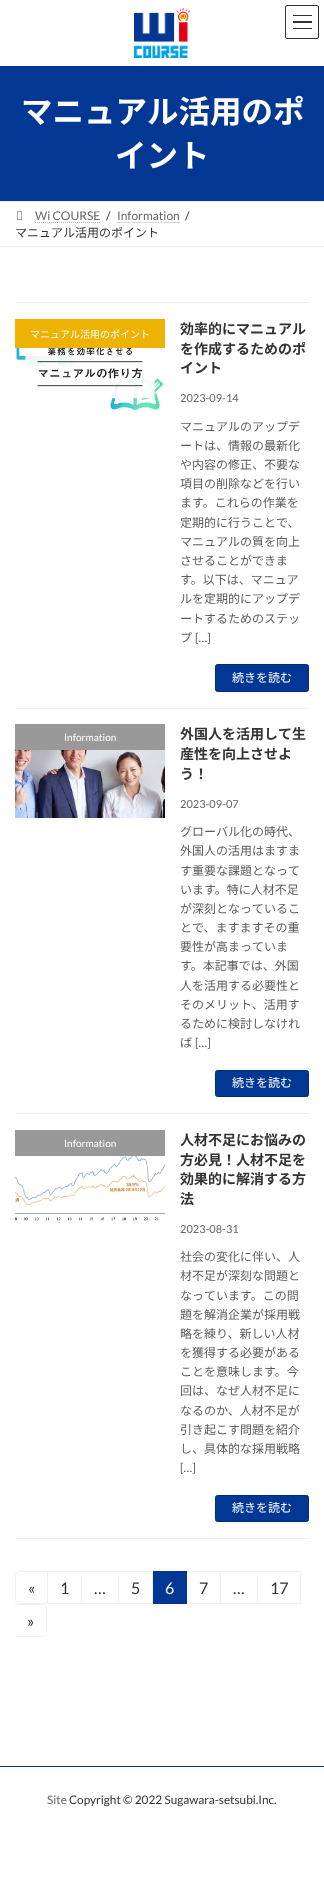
<!DOCTYPE html>
<meta charset="utf-8">
<style>body { margin: 0 } canvas { display: block }</style>
<canvas id="canvas" width="324" height="1899"></canvas>
<script type="module">
  const canvas = document.getElementById("canvas");
  const g = canvas.getContext("2d");
  g.miterLimit = 4;
  g.fontKerning = "normal";
  function drawText(s, x, y, [font, color]) {
    g.font = font;
    g.fillStyle = color;
    g.fillText(s, x, y);
  }
  function fillBox(x, y, w, h, color) {
    g.fillStyle = color;
    g.fillRect(x, y, w, h);
  }
  async function drawPicture(src, x, y, w, h) {
    const img = new Image();
    img.src = src;
    await img.decode();
    g.drawImage(img, x, y, w, h);
  }

  const s1 = ["bold 31.5px Noto Sans JP", "#FFFFFF"];
  const s2 = ["12px Lato", "#666666"];
  const s3 = ["12px Lato", "#333333"];
  const s4 = ["12px Noto Sans JP", "#333333"];
  const s5 = ["10px Noto Sans JP", "#FFFFFF"];
  const s6 = ["bold 14px Noto Sans JP", "#333333"];
  const s7 = ["11px Lato", "#666666"];
  const s8 = ["12px Noto Sans JP", "#5C5C5C"];
  const s9 = ["12px Lato", "#5C5C5C"];
  const s10 = ["12px Noto Sans JP", "#FFFFFF"];
  const s11 = ["10px Lato", "#FFFFFF"];
  const s12 = ["16px Lato", "#333333"];
  const s13 = ["16px Lato", "#FFFFFF"];
  const s14 = ["11.8px Lato", "#666666"];
  const s15 = ["11.8px Lato", "#333333"];

  fillBox(0, 0, 324, 1899, "#FFFFFF");
  await drawPicture("pic1.png", 134, 8, 56, 50);
  fillBox(293, 15, 19, 1, "#333333");
  fillBox(293, 21, 19, 2, "#333333");
  fillBox(293, 28, 19, 1, "#333333");
  g.beginPath();
  g.roundRect(285.5, 5.5, 33, 33, 1.5);
  g.strokeStyle = "#333333";
  g.stroke();
  fillBox(0, 66, 324, 135, "#023894");
  drawText("マニュアル活用のポ", 21, 123, s1);
  drawText("イント", 115, 167, s1);
  fillBox(0, 201, 324, 1, "#F0F0F0");
  fillBox(0, 246, 324, 1, "#F0F0F0");
  await drawPicture("pic2.png", 17, 211, 6, 9);
  drawText("Wi COURSE", 35, 220, s2);
  g.beginPath();
  g.moveTo(35, 222.5);
  g.lineTo(100, 222.5);
  g.strokeStyle = "#B3B3B3";
  g.setLineDash([1, 1]);
  g.stroke();
  drawText("/", 106, 220, s3);
  drawText("Information", 117, 220, s2);
  g.beginPath();
  g.moveTo(116.5, 222.5);
  g.lineTo(179.5, 222.5);
  g.stroke();
  drawText("/", 185, 220, s3);
  drawText("マニュアル活用のポイント", 15, 237, s4);
  fillBox(15, 302, 294, 1, "#F0F0F0");
  fillBox(15, 708, 294, 1, "#F0F0F0");
  await drawPicture("pic3.png", 15, 348, 149, 65);
  fillBox(15, 319, 150, 29, "#EDB202");
  drawText("マニュアル活用のポイント", 30, 338, s5);
  drawText("効率的にマニュアル", 180, 334, s6);
  drawText("を作成するためのポ", 180, 354, s6);
  drawText("イント", 180, 373, s6);
  drawText("2023-09-14", 180, 402, s7);
  drawText("マニュアルのアップデ", 180, 431, s8);
  drawText("ートは、情報の最新化", 180, 450, s8);
  drawText("や内容の修正、不要な", 180, 469, s8);
  drawText("項目の削除などを行い", 180, 488, s8);
  drawText("ます。これらの作業を", 180, 507, s8);
  drawText("定期的に行うことで、", 180, 527, s8);
  drawText("マニュアルの質を向上", 180, 546, s8);
  drawText("させることができま", 180, 565, s8);
  drawText("す。以下は、マニュア", 180, 584, s8);
  drawText("ルを定期的にアップデ", 180, 603, s8);
  drawText("ートするためのステッ", 180, 623, s8);
  drawText("プ", 180, 642, s8);
  drawText("[…]", 195, 642, s9);
  g.fillStyle = "#023894";
  g.beginPath();
  g.roundRect(215.5, 664.5, 93, 27, 2);
  g.fill();
  g.strokeStyle = "#012C76";
  g.setLineDash([]);
  g.stroke();
  drawText("続きを読む", 232, 682, s10);
  fillBox(15, 1113, 294, 1, "#F0F0F0");
  await drawPicture("pic4.png", 15, 750, 150, 68);
  fillBox(15, 724, 150, 26, "#999999");
  drawText("Information", 64, 741, s11);
  drawText("外国人を活用して生", 180, 739, s6);
  drawText("産性を向上させよ", 180, 759, s6);
  drawText("う！", 180, 779, s6);
  drawText("2023-09-07", 180, 808, s7);
  drawText("グローバル化の時代、", 180, 836, s8);
  drawText("外国人の活用はますま", 180, 855, s8);
  drawText("す重要な課題となって", 180, 875, s8);
  drawText("います。特に人材不足", 180, 894, s8);
  drawText("が深刻となっているこ", 180, 913, s8);
  drawText("とで、ますますその重", 180, 932, s8);
  drawText("要性が高まっていま", 180, 951, s8);
  drawText("す。本記事では、外国", 180, 970, s8);
  drawText("人を活用する必要性と", 180, 990, s8);
  drawText("そのメリット、活用す", 180, 1009, s8);
  drawText("るために検討しなけれ", 180, 1028, s8);
  drawText("ば", 180, 1047, s8);
  drawText("[…]", 195, 1047, s9);
  g.fillStyle = "#023894";
  g.beginPath();
  g.roundRect(215.5, 1070.5, 93, 26, 2);
  g.fill();
  g.stroke();
  drawText("続きを読む", 232, 1087, s10);
  fillBox(15, 1538, 294, 1, "#F0F0F0");
  await drawPicture("pic5.png", 15, 1156, 150, 65);
  fillBox(15, 1130, 150, 26, "#999999");
  drawText("Information", 64, 1147, s11);
  drawText("人材不足にお悩みの", 180, 1145, s6);
  drawText("方必見！人材不足を", 180, 1165, s6);
  drawText("効果的に解消する方", 180, 1184, s6);
  drawText("法", 180, 1204, s6);
  drawText("2023-08-31", 180, 1233, s7);
  drawText("社会の変化に伴い、人", 180, 1261, s8);
  drawText("材不足が深刻な問題と", 180, 1280, s8);
  drawText("なっています。この問", 180, 1300, s8);
  drawText("題を解消企業が採用戦", 180, 1319, s8);
  drawText("略を練り、新しい人材", 180, 1338, s8);
  drawText("を獲得する必要がある", 180, 1357, s8);
  drawText("ことを意味します。今", 180, 1376, s8);
  drawText("回は、なぜ人材不足に", 180, 1395, s8);
  drawText("なるのか、人材不足が", 180, 1415, s8);
  drawText("引き起こす問題を紹介", 180, 1434, s8);
  drawText("し、具体的な採用戦略", 180, 1453, s8);
  drawText("[…]", 180, 1472, s9);
  g.fillStyle = "#023894";
  g.beginPath();
  g.roundRect(215.5, 1495.5, 93, 26, 2);
  g.fill();
  g.stroke();
  drawText("続きを読む", 232, 1512, s10);
  g.beginPath();
  g.roundRect(15.5, 1571.5, 32, 32, [4.5, 0, 0, 4.5]);
  g.strokeStyle = "#F0F0F0";
  g.stroke();
  drawText("«", 28, 1594, s12);
  g.save();
  g.beginPath();
  g.rect(48, 1571, 34, 33);
  g.clip();
  g.strokeRect(47.5, 1571.5, 34, 32);
  g.restore();
  drawText("1", 60, 1594, s12);
  g.save();
  g.beginPath();
  g.rect(82, 1571, 37, 33);
  g.clip();
  g.strokeRect(81.5, 1571.5, 37, 32);
  g.restore();
  g.save();
  g.beginPath();
  g.rect(119, 1571, 34, 33);
  g.clip();
  g.strokeRect(118.5, 1571.5, 34, 32);
  g.restore();
  drawText("5", 131, 1594, s12);
  fillBox(153, 1572, 33, 31, "#023894");
  g.save();
  g.beginPath();
  g.rect(153, 1571, 34, 33);
  g.clip();
  g.strokeStyle = "#02358B";
  g.strokeRect(152.5, 1571.5, 34, 32);
  g.restore();
  drawText("6", 165, 1594, s13);
  g.save();
  g.beginPath();
  g.rect(187, 1571, 34, 33);
  g.clip();
  g.strokeRect(186.5, 1571.5, 34, 32);
  g.restore();
  drawText("7", 199, 1594, s12);
  g.save();
  g.beginPath();
  g.rect(221, 1571, 37, 33);
  g.clip();
  g.strokeRect(220.5, 1571.5, 37, 32);
  g.restore();
  g.save();
  g.beginPath();
  g.rect(258, 1571, 43, 33);
  g.clip();
  g.strokeRect(257.5, 1571.5, 43, 32);
  g.restore();
  drawText("17", 270, 1594, s12);
  drawText("…", 94, 1594, s12);
  drawText("…", 233, 1594, s12);
  g.save();
  g.beginPath();
  g.rect(15, 1604, 32, 33);
  g.clip();
  g.beginPath();
  g.roundRect(14.5, 1604.5, 32, 32, [0, 4.5, 4.5, 0]);
  g.stroke();
  g.restore();
  drawText("»", 27, 1627, s12);
  fillBox(0, 1766, 324, 1, "#023894");
  drawText("Site", 47, 1804, s14);
  drawText("Copyright © 2022 Sugawara-setsubi.Inc.", 69, 1804, s15);
</script>
